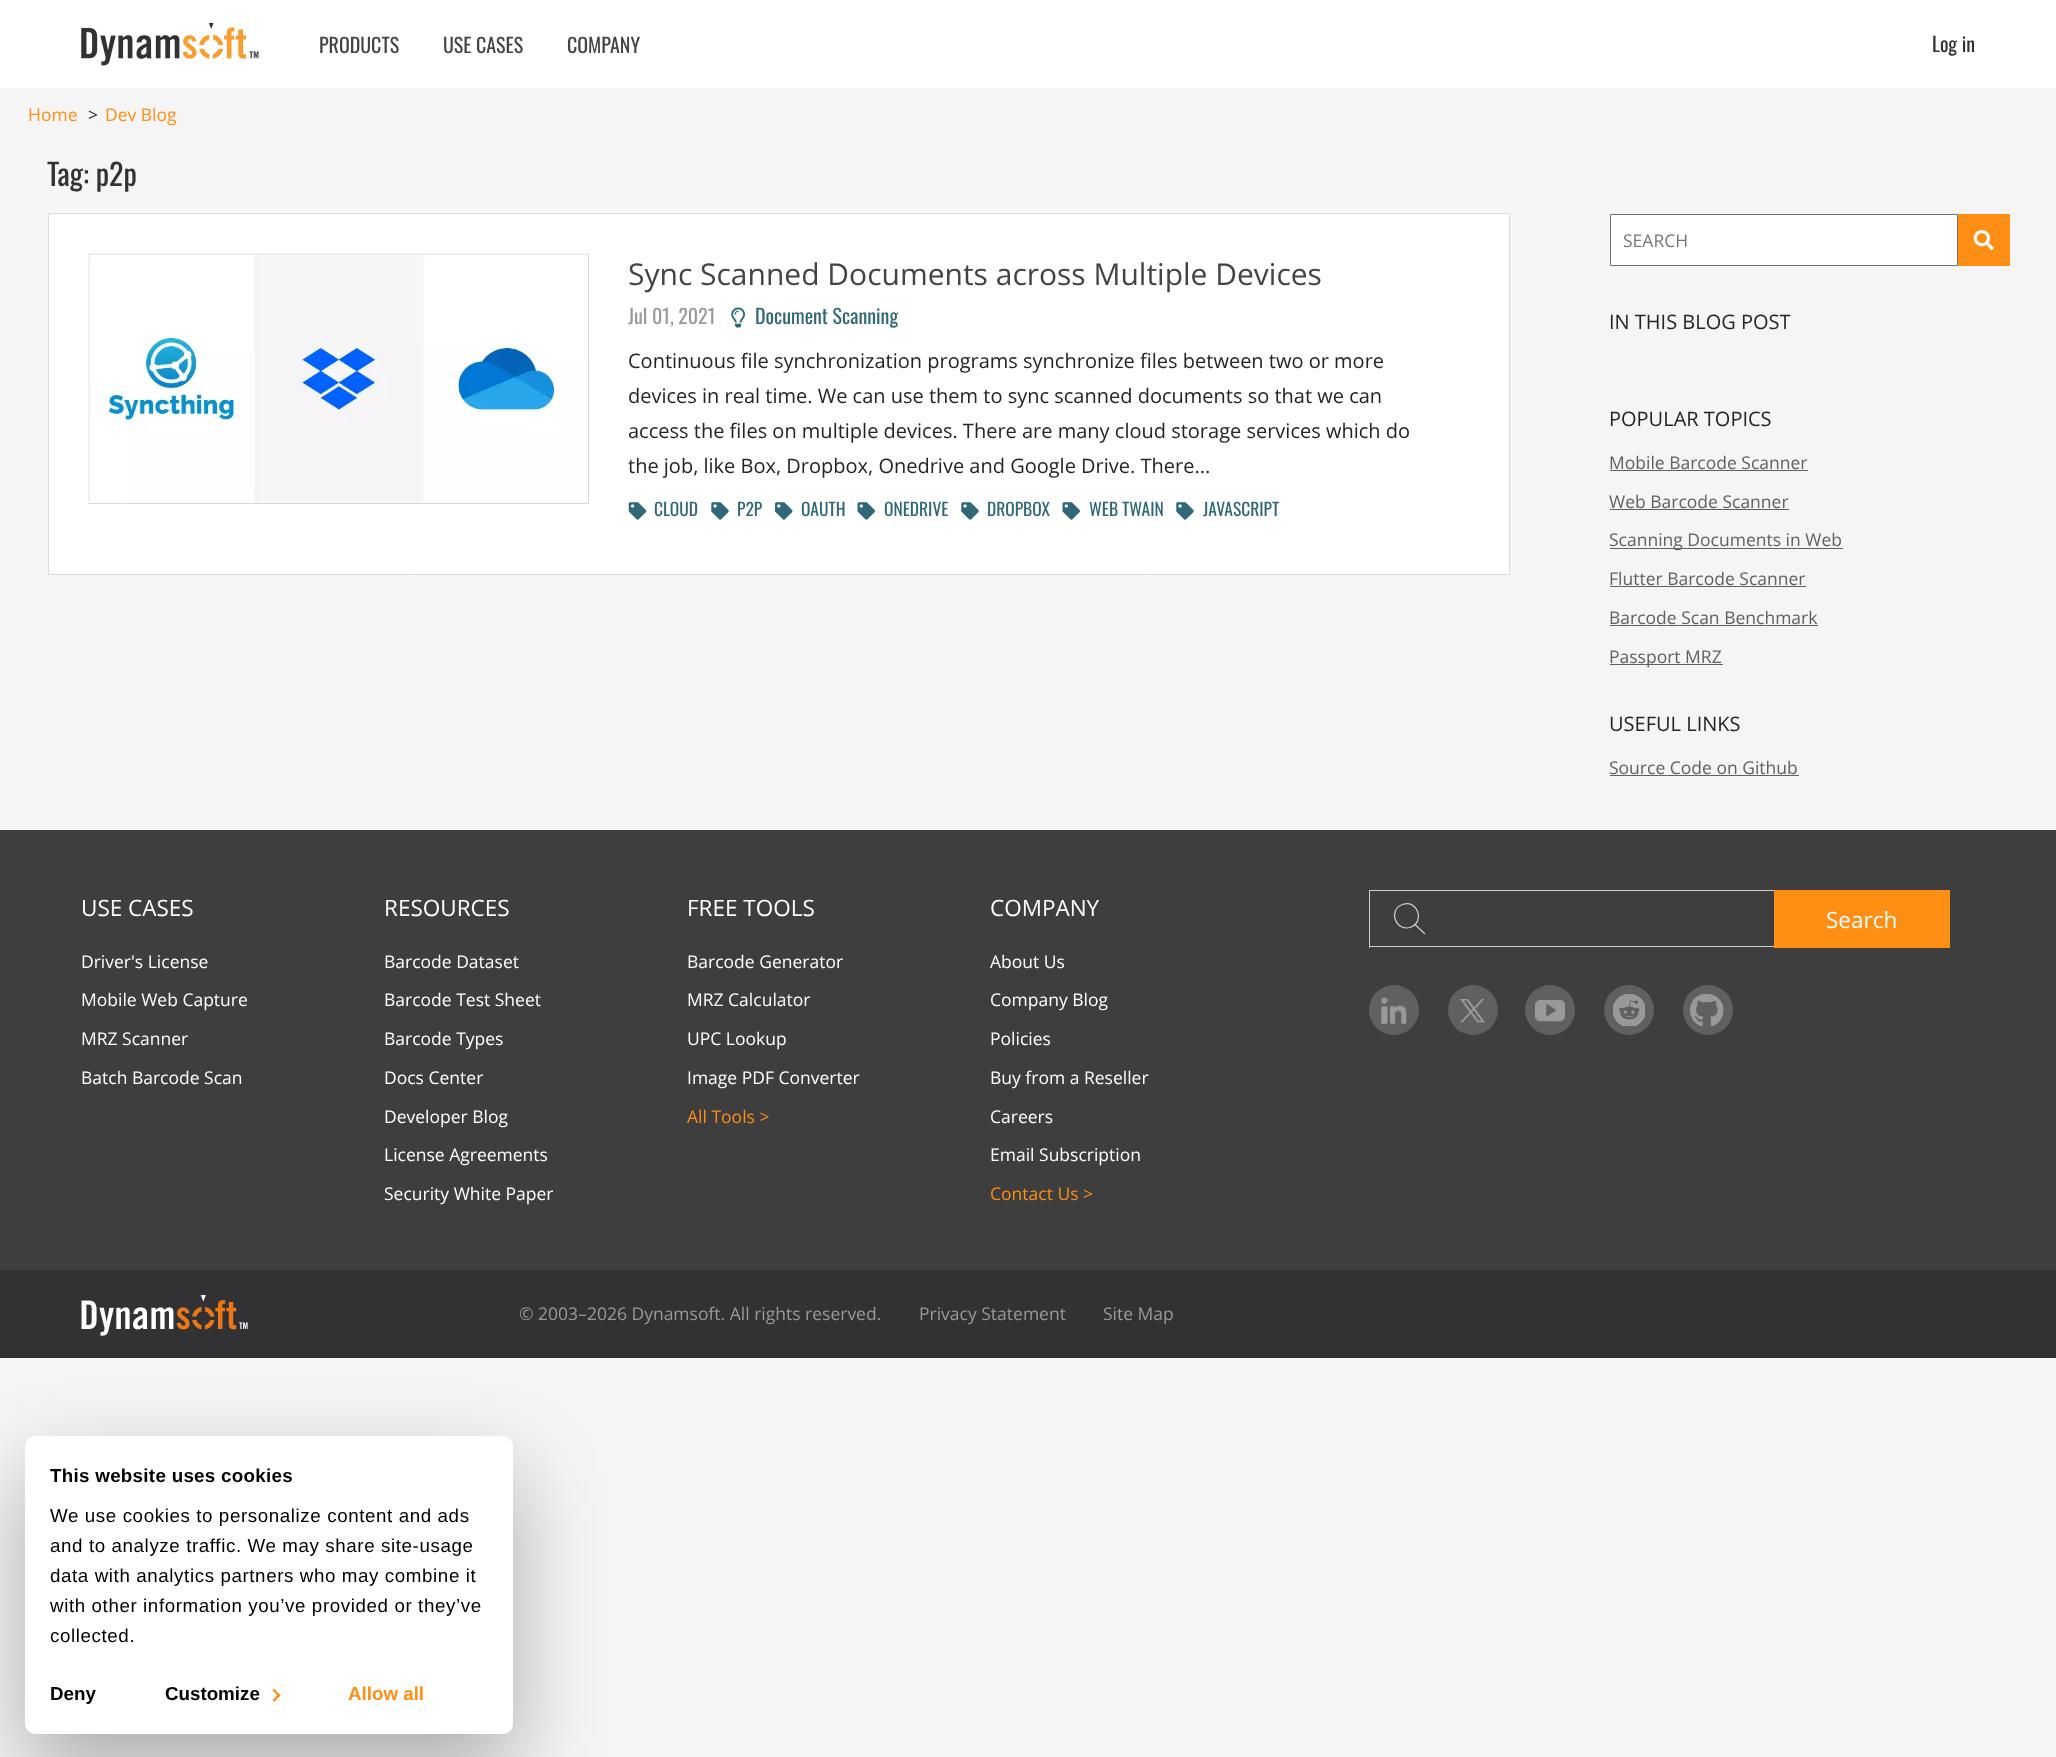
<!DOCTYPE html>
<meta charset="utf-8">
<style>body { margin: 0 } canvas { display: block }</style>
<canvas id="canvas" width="2056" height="1757"></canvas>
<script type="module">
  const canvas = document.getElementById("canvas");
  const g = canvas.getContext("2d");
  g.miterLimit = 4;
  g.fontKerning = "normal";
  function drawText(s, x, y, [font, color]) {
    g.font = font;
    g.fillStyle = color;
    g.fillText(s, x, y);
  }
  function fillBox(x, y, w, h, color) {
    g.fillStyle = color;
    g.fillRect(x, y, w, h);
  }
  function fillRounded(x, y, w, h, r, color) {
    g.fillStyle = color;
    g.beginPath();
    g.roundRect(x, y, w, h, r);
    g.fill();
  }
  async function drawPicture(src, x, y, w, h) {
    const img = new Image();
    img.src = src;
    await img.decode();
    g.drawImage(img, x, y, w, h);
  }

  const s1 = ["20px Oswald", "#444444"];
  const s2 = ["20px Oswald", "#323234"];
  const s3 = ["17.5px Open Sans", "#FE8E14"];
  const s4 = ["17.5px Open Sans", "#212529"];
  const s5 = ["30px Oswald", "#323234"];
  const s6 = ["30px Open Sans", "#444444"];
  const s7 = ["20px Oswald", "#999999"];
  const s8 = ["20px Oswald", "#306877"];
  const s9 = ["20px Open Sans", "#212529"];
  const s10 = ["17.5px Oswald", "#306877"];
  const s11 = ["17.5px Open Sans", "#757575"];
  const s12 = ["17.5px Open Sans", "#606060"];
  const s13 = ["22.5px Open Sans", "#FFFFFF"];
  const s14 = ["17.5px Open Sans", "#FFFFFF"];
  const s15 = ["17.5px Open Sans", "#999999"];
  const s16 = ["bold 18.75px Liberation Sans", "#000000"];
  const s17 = ["18.75px Liberation Sans", "#000000"];
  const s18 = ["bold 18.75px Liberation Sans", "#FE8E14"];

  fillBox(0, 0, 2056, 1757, "#F5F5F5");
  fillBox(0, 0, 2056, 88, "#FFFFFF");
  await drawPicture("pic1.png", 81, 23, 178, 43);
  drawText("PRODUCTS", 319, 53, s1);
  drawText("USE CASES", 443, 53, s1);
  drawText("COMPANY", 567, 53, s1);
  drawText("Log in", 1932, 52, s2);
  drawText("Home", 28, 121, s3);
  drawText(">", 88, 121, s4);
  drawText("Dev Blog", 105, 121, s3);
  drawText("Tag: p2p", 47, 186, s5);
  g.fillStyle = "#FFFFFF";
  g.beginPath();
  g.rect(48.5, 213.5, 1461, 361);
  g.fill();
  g.strokeStyle = "#DDDDDD";
  g.stroke();
  await drawPicture("pic2.png", 88, 253, 501, 251);
  drawText("Sync Scanned Documents across Multiple Devices", 628, 285, s6);
  drawText("Jul 01, 2021", 628, 324, s7);
  await drawPicture("pic3.png", 731, 307, 14, 21);
  drawText("Document Scanning", 755, 324, s8);
  drawText("Continuous file synchronization programs synchronize files between two or more", 628, 368, s9);
  drawText("devices in real time. We can use them to sync scanned documents so that we can", 628, 403, s9);
  drawText("access the files on multiple devices. There are many cloud storage services which do", 628, 438, s9);
  drawText("the job, like Box, Dropbox, Onedrive and Google Drive. There...", 628, 473, s9);
  await drawPicture("pic4.png", 628, 502, 19, 18);
  drawText("CLOUD", 654, 516, s10);
  await drawPicture("pic5.png", 711, 502, 18, 18);
  drawText("P2P", 737, 516, s10);
  await drawPicture("pic6.png", 775, 502, 18, 18);
  drawText("OAUTH", 801, 516, s10);
  await drawPicture("pic7.png", 857, 502, 18, 18);
  drawText("ONEDRIVE", 884, 516, s10);
  await drawPicture("pic5.png", 961, 502, 18, 18);
  drawText("DROPBOX", 987, 516, s10);
  await drawPicture("pic7.png", 1062, 502, 18, 18);
  drawText("WEB TWAIN", 1089, 516, s10);
  await drawPicture("pic5.png", 1176, 502, 18, 18);
  drawText("JAVASCRIPT", 1203, 516, s10);
  g.fillStyle = "#FFFFFF";
  g.beginPath();
  g.rect(1610.5, 214.5, 347, 51);
  g.fill();
  g.strokeStyle = "#707070";
  g.stroke();
  drawText("SEARCH", 1623, 247, s11);
  fillBox(1958, 214, 52, 52, "#FE8E14");
  await drawPicture("pic8.png", 1973, 230, 21, 20);
  drawText("IN THIS BLOG POST", 1609, 329, s9);
  drawText("POPULAR TOPICS", 1609, 426, s9);
  drawText("Mobile Barcode Scanner", 1609, 469, s12);
  fillBox(1610, 470, 198, 1, "#606060");
  drawText("Web Barcode Scanner", 1609, 508, s12);
  fillBox(1610, 509, 179, 1, "#606060");
  fillBox(1610, 548, 233, 1, "#606060");
  drawText("Scanning Documents in Web", 1609, 546, s12);
  drawText("Flutter Barcode Scanner", 1609, 585, s12);
  fillBox(1610, 586, 196, 1, "#606060");
  drawText("Barcode Scan Benchmark", 1609, 624, s12);
  fillBox(1610, 625, 208, 1, "#606060");
  fillBox(1610, 664, 113, 1, "#606060");
  drawText("Passport MRZ", 1609, 663, s12);
  drawText("USEFUL LINKS", 1609, 731, s9);
  drawText("Source Code on Github", 1609, 774, s12);
  fillBox(1610, 775, 189, 1, "#606060");
  fillBox(0, 830, 2056, 440, "#3E3E3E");
  drawText("USE CASES", 81, 916, s13);
  drawText("Driver's License", 81, 968, s14);
  drawText("Mobile Web Capture", 81, 1006, s14);
  drawText("MRZ Scanner", 81, 1045, s14);
  drawText("Batch Barcode Scan", 81, 1084, s14);
  drawText("RESOURCES", 384, 916, s13);
  drawText("Barcode Dataset", 384, 968, s14);
  drawText("Barcode Test Sheet", 384, 1006, s14);
  drawText("Barcode Types", 384, 1045, s14);
  drawText("Docs Center", 384, 1084, s14);
  drawText("Developer Blog", 384, 1123, s14);
  drawText("License Agreements", 384, 1161, s14);
  drawText("Security White Paper", 384, 1200, s14);
  drawText("FREE TOOLS", 687, 916, s13);
  drawText("Barcode Generator", 687, 968, s14);
  drawText("MRZ Calculator", 687, 1006, s14);
  drawText("UPC Lookup", 687, 1045, s14);
  drawText("Image PDF Converter", 687, 1084, s14);
  drawText("All Tools >", 687, 1123, s3);
  drawText("COMPANY", 990, 916, s13);
  drawText("About Us", 990, 968, s14);
  drawText("Company Blog", 990, 1006, s14);
  drawText("Policies", 990, 1045, s14);
  drawText("Buy from a Reseller", 990, 1084, s14);
  drawText("Careers", 990, 1123, s14);
  drawText("Email Subscription", 990, 1161, s14);
  drawText("Contact Us >", 990, 1200, s3);
  fillBox(1369, 890, 405, 1, "#CCCCCC");
  fillBox(1369, 946, 405, 1, "#CCCCCC");
  fillBox(1369, 890, 1, 58, "#CCCCCC");
  g.beginPath();
  g.moveTo(1411, 927);
  g.bezierCurveTo(1425.5, 921, 1417, 899, 1402.5, 904.5);
  g.bezierCurveTo(1387, 910, 1396.5, 933, 1411, 927);
  g.closePath();
  g.moveTo(1415, 924.5);
  g.lineTo(1424.5, 933.5);
  g.strokeStyle = "#CCCCCC";
  g.lineWidth = 1.2;
  g.lineCap = "round";
  g.lineJoin = "round";
  g.stroke();
  fillBox(1774, 890, 176, 58, "#FE8E14");
  drawText("Search", 1826, 928, s13);
  g.fillStyle = "#606060";
  g.beginPath();
  g.arc(1394, 1010, 25, 0, Math.PI * 2);
  g.fill();
  await drawPicture("pic9.png", 1381, 997, 26, 27);
  g.beginPath();
  g.arc(1473, 1010, 25, 0, Math.PI * 2);
  g.fill();
  await drawPicture("pic10.png", 1460, 999, 25, 24);
  g.beginPath();
  g.arc(1550, 1010, 25, 0, Math.PI * 2);
  g.fill();
  await drawPicture("pic11.png", 1535, 1000, 30, 22);
  g.beginPath();
  g.arc(1629, 1010, 25, 0, Math.PI * 2);
  g.fill();
  await drawPicture("pic12.png", 1613, 994, 32, 32);
  g.beginPath();
  g.arc(1708, 1010, 25, 0, Math.PI * 2);
  g.fill();
  await drawPicture("pic13.png", 1690, 994, 34, 32);
  fillBox(0, 1270, 2056, 88, "#323234");
  await drawPicture("pic14.png", 81, 1295, 167, 41);
  drawText("© 2003–2026 Dynamsoft. All rights reserved.", 519, 1320, s15);
  drawText("Privacy Statement", 919, 1320, s15);
  drawText("Site Map", 1103, 1320, s15);
  g.fillStyle = "rgba(0, 0, 0, 0.3)";
  g.filter = "blur(44px)";
  g.beginPath();
  g.roundRect(25, 1474, 488, 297, 10);
  g.fill();
  g.filter = "none";
  fillRounded(25, 1436, 488, 298, 10, "#FFFFFF");
  g.letterSpacing = "0.3px";
  drawText("This website uses cookies", 50, 1482, s16);
  g.letterSpacing = "0.6px";
  drawText("We use cookies to personalize content and ads", 50, 1522, s17);
  drawText("and to analyze traffic. We may share site-usage", 50, 1552, s17);
  drawText("data with analytics partners who may combine it", 50, 1582, s17);
  drawText("with other information you’ve provided or they’ve", 50, 1612, s17);
  drawText("collected.", 50, 1642, s17);
  g.letterSpacing = "0px";
  drawText("Deny", 50, 1700, s16);
  drawText("Customize", 165, 1700, s16);
  g.fillStyle = "#FE8E14";
  g.beginPath();
  g.moveTo(274, 1688.5);
  g.lineTo(280.5, 1695.5);
  g.lineTo(279, 1697);
  g.lineTo(272.5, 1690.5);
  g.closePath();
  g.fill();
  g.beginPath();
  g.moveTo(279, 1693.5);
  g.lineTo(280.5, 1695.5);
  g.lineTo(274, 1702);
  g.lineTo(272.5, 1700);
  g.closePath();
  g.fill();
  drawText("Allow all", 348, 1700, s18);
</script>
